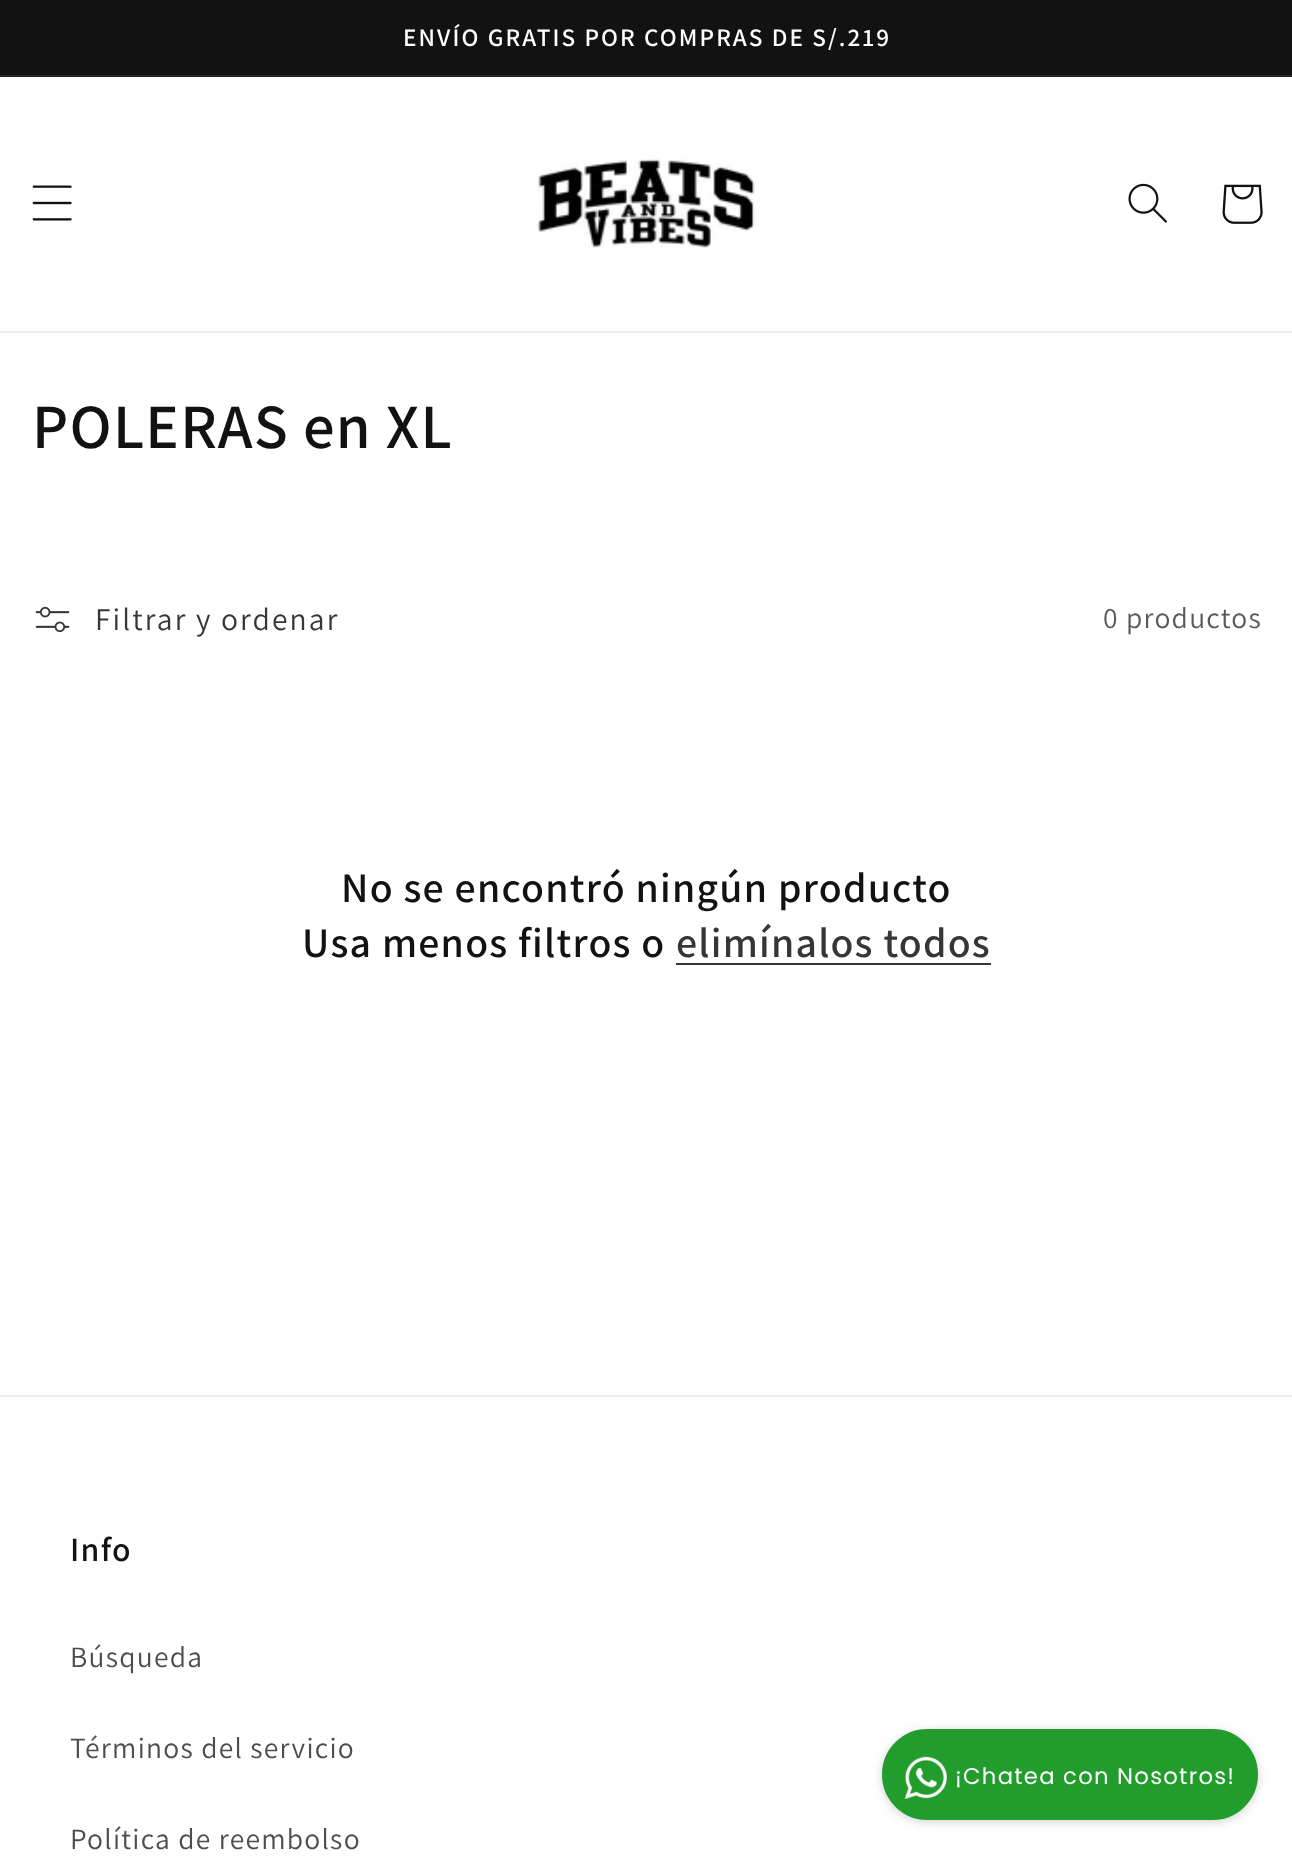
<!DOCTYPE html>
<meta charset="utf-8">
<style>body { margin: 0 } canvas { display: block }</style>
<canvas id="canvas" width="1292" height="1871"></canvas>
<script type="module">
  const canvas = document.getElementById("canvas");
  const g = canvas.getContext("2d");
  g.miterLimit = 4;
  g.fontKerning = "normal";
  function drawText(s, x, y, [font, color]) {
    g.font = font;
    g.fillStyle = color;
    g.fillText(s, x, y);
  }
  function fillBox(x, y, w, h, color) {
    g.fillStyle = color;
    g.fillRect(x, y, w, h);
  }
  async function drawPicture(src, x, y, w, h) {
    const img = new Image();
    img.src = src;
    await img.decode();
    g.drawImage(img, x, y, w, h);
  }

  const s1 = ["600 25.25px Assistant", "#FFFFFF"];
  const s2 = ["600 63px Assistant", "#121212"];
  const s3 = ["31.5px Assistant", "#363636"];
  const s4 = ["29.5px Assistant", "#595959"];
  const s5 = ["600 42px Assistant", "#121212"];
  const s6 = ["600 42px Assistant", "#363636"];
  const s7 = ["600 34px Assistant", "#121212"];
  const s8 = ["29.5px Assistant", "#4D4D4D"];
  const s9 = ["22.75px Poppins", "#FFFFFF"];

  fillBox(0, 0, 1292, 1871, "#FFFFFF");
  fillBox(0, 0, 1292, 75, "#121212");
  fillBox(0, 75, 1292, 2, "#252525");
  g.letterSpacing = "2.1px";
  drawText("ENVÍO GRATIS POR COMPRAS DE S/.219", 403, 46, s1);
  fillBox(0, 331, 1292, 2, "#ECECEC");
  await drawPicture("pic1.png", 32, 185, 40, 36);
  await drawPicture("pic2.png", 536, 156, 219, 92);
  await drawPicture("pic3.png", 1128, 183, 39, 40);
  await drawPicture("pic4.png", 1222, 184, 41, 40);
  g.letterSpacing = "1.25px";
  drawText("POLERAS en XL", 32, 448, s2);
  await drawPicture("pic5.png", 35, 606, 35, 27);
  g.letterSpacing = "2.1px";
  drawText("Filtrar y ordenar", 95, 630, s3);
  g.letterSpacing = "1.25px";
  drawText("0 productos", 1103, 628, s4);
  drawText("No se encontró ningún producto", 341, 902, s5);
  drawText("Usa menos filtros o", 302, 957, s5);
  drawText("elimínalos todos", 676, 957, s6);
  fillBox(676, 963, 315, 2, "#363636");
  fillBox(0, 1395, 1292, 2, "#ECECEC");
  drawText("Info", 70, 1561, s7);
  drawText("Búsqueda", 70, 1667, s8);
  drawText("Términos del servicio", 70, 1758, s8);
  drawText("Política de reembolso", 70, 1849, s8);
  g.fillStyle = "rgba(27, 27, 27, 0.2)";
  g.filter = "blur(5px)";
  g.beginPath();
  g.roundRect(882, 1731, 376, 91, 45.5);
  g.fill();
  g.filter = "none";
  g.fillStyle = "#229C2C";
  g.beginPath();
  g.roundRect(883, 1730, 374, 89, 44.5);
  g.fill();
  g.strokeStyle = "#229C2C";
  g.lineWidth = 2;
  g.stroke();
  await drawPicture("pic6.png", 904, 1756, 43, 43);
  drawText("¡Chatea con Nosotros!", 955, 1784, s9);
</script>
